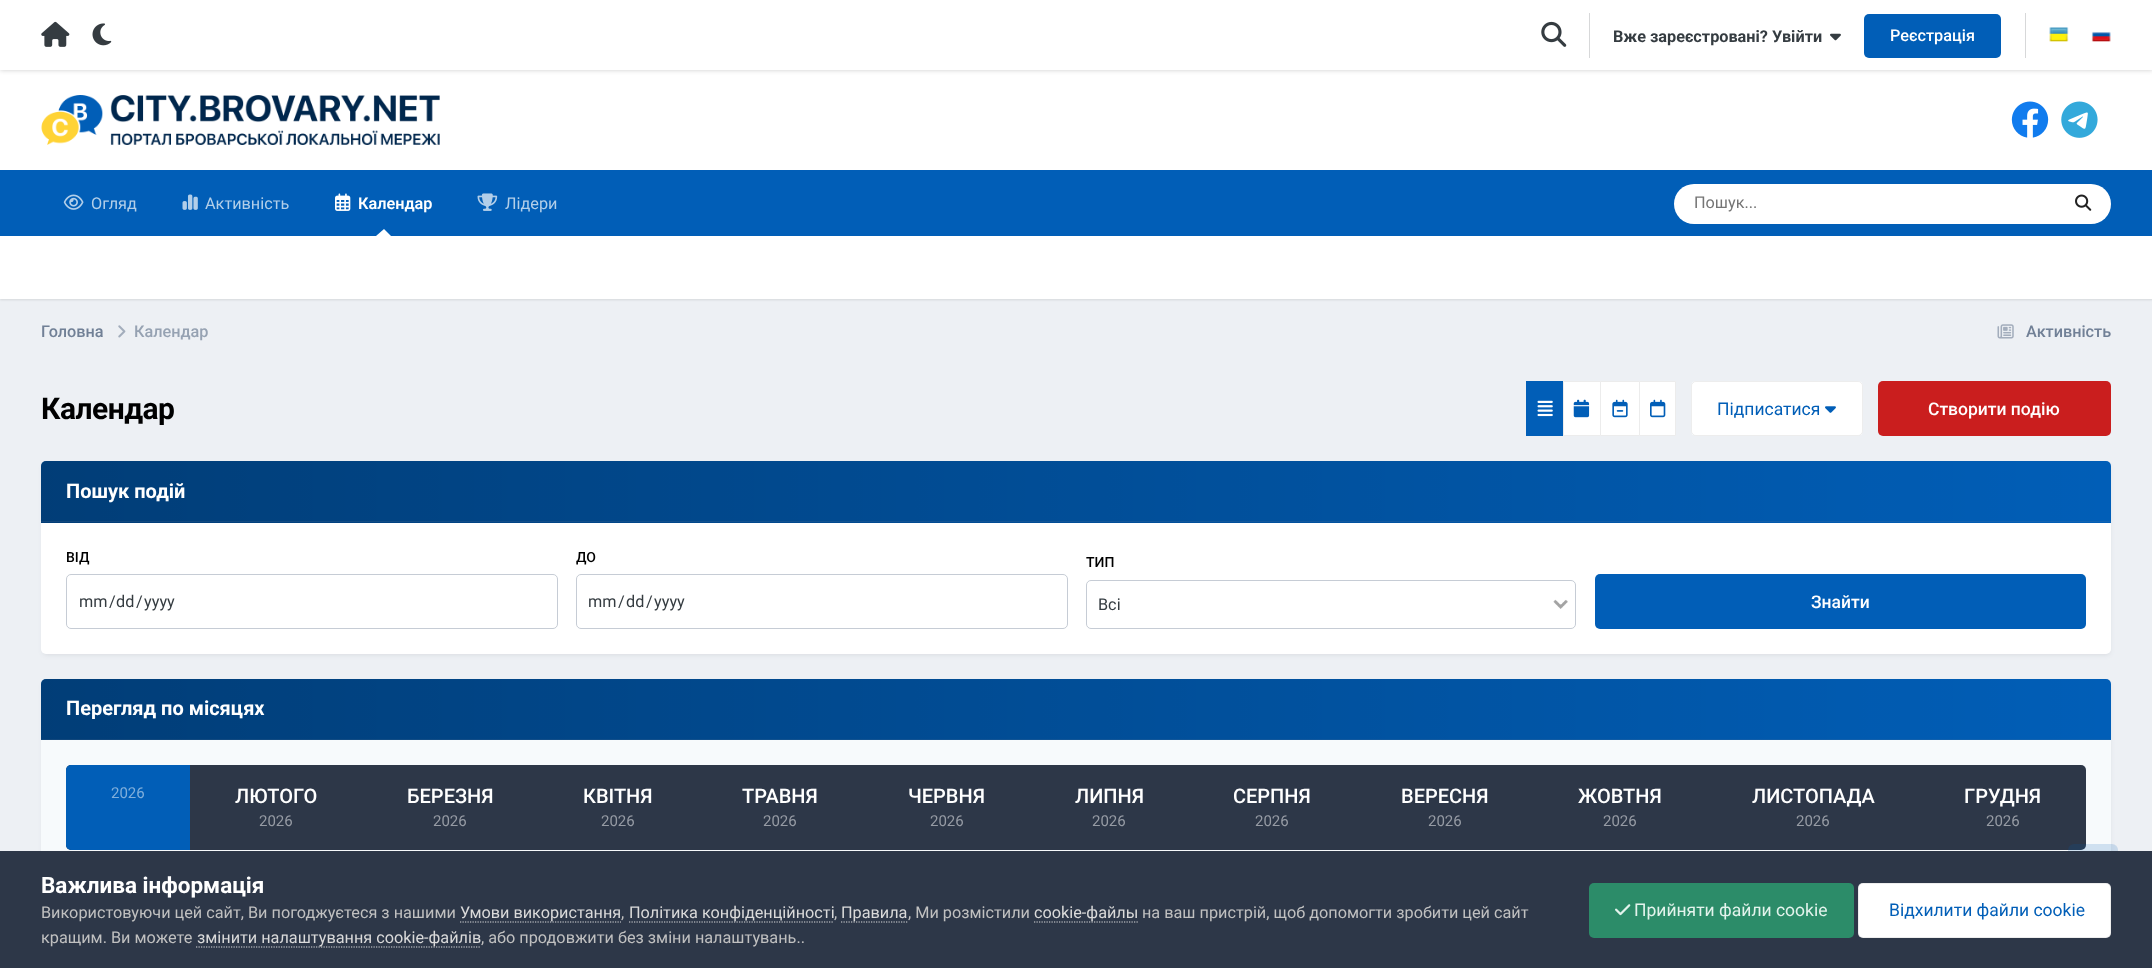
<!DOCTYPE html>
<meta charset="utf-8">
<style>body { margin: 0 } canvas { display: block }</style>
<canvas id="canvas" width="2152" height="968"></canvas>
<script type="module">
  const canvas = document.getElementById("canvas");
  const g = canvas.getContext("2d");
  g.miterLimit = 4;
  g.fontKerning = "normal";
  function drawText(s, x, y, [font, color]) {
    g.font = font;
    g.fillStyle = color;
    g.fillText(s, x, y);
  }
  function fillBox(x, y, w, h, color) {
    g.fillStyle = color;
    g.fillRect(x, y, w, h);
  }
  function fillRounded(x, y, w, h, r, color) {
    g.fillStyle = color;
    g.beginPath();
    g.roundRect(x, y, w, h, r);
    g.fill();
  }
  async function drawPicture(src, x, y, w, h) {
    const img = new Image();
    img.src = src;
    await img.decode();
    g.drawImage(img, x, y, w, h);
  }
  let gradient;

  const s1 = ["bold 16.25px Roboto", "#353C41"];
  const s2 = ["500 16.25px Roboto", "#FFFFFF"];
  const s3 = ["16.25px Roboto", "#B3CFE9"];
  const s4 = ["600 16.25px Roboto", "#FFFFFF"];
  const s5 = ["16.25px Roboto", "#757575"];
  const s6 = ["500 16.25px Roboto", "#718096"];
  const s7 = ["500 16.25px Roboto", "#96A2B2"];
  const s8 = ["bold 30px Roboto", "#000000"];
  const s9 = ["17.5px Roboto", "#015EB7"];
  const s10 = ["500 17.5px Roboto", "#FFFFFF"];
  const s11 = ["bold 20px Roboto", "#FFFFFF"];
  const s12 = ["500 14px Roboto", "#000000"];
  const s13 = ["16.25px Roboto", "#353C41"];
  const s14 = ["15px Roboto", "#80AFDB"];
  const s15 = ["500 20px Roboto", "#FFFFFF"];
  const s16 = ["15px Roboto", "#969BA4"];
  const s17 = ["bold 22.5px Roboto", "#FFFFFF"];
  const s18 = ["16.25px Roboto", "#C0C0C0"];
  const s19 = ["16.25px Roboto", "#DADADA"];
  const s20 = ["17.5px Roboto", "#E3F3EC"];

  fillBox(0, 0, 2152, 968, "#EDF0F4");
  fillBox(0, 70, 2152, 100, "#FFFFFF");
  g.fillStyle = "rgba(0, 0, 0, 0.2)";
  g.filter = "blur(2.5px)";
  g.beginPath();
  g.rect(0, 0, 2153, 70);
  g.fill();
  g.filter = "none";
  fillBox(0, 0, 2152, 70, "#FFFFFF");
  await drawPicture("pic1.png", 41, 21, 29, 26);
  await drawPicture("pic2.png", 92, 23, 20, 23);
  await drawPicture("pic3.png", 1541, 21, 26, 26);
  fillBox(1589, 13, 1, 45, "#D7D8D9");
  drawText("Вже зареєстровані? Увійти", 1613, 42, s1);
  await drawPicture("pic4.png", 1830, 33, 11, 8);
  fillRounded(1864, 14, 137, 44, 5, "#015EB7");
  drawText("Реєстрація", 1890, 41, s2);
  fillBox(2025, 13, 1, 45, "#D7D8D9");
  await drawPicture("pic5.png", 2049, 27, 20, 15);
  await drawPicture("pic6.png", 2091, 31, 20, 11);
  await drawPicture("pic7.png", 41, 95, 399, 50);
  await drawPicture("pic8.png", 2011, 101, 38, 37);
  await drawPicture("pic9.png", 2061, 101, 37, 37);
  fillBox(0, 170, 2152, 66, "#015EB7");
  await drawPicture("pic10.png", 63, 194, 21, 16);
  drawText("Огляд", 91, 209, s3);
  await drawPicture("pic11.png", 182, 194, 16, 16);
  drawText("Активність", 205, 209, s3);
  await drawPicture("pic12.png", 335, 193, 16, 18);
  drawText("Календар", 358, 209, s4);
  g.fillStyle = "rgba(0, 0, 0, 0.1)";
  g.filter = "blur(1px)";
  g.beginPath();
  g.rect(0, 238, 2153, 62);
  g.fill();
  g.filter = "none";
  g.fillStyle = "#FFFFFF";
  g.beginPath();
  g.moveTo(391, 236);
  g.lineTo(376, 236);
  g.lineTo(384, 229);
  g.closePath();
  g.fill();
  await drawPicture("pic13.png", 477, 193, 21, 18);
  drawText("Лідери", 505, 209, s3);
  fillRounded(1674, 184, 437, 40, 20, "#FFFFFF");
  drawText("Пошук...", 1694, 208, s5);
  await drawPicture("pic14.png", 2075, 194, 17, 17);
  fillBox(0, 236, 2152, 63, "#FFFFFF");
  drawText("Головна", 41, 337, s6);
  await drawPicture("pic15.png", 118, 325, 8, 13);
  drawText("Календар", 134, 337, s7);
  await drawPicture("pic16.png", 1997, 324, 17, 15);
  drawText("Активність", 2026, 337, s6);
  g.letterSpacing = "-0.5px";
  drawText("Календар", 41, 419, s8);
  fillBox(1526, 381, 37, 55, "#015EB7");
  await drawPicture("pic17.png", 1537, 400, 16, 17);
  g.fillStyle = "#FFFFFF";
  g.beginPath();
  g.rect(1563.5, 381.5, 37, 54);
  g.fill();
  g.strokeStyle = "#ECECEC";
  g.stroke();
  await drawPicture("pic18.png", 1573, 399, 17, 19);
  g.beginPath();
  g.rect(1600.5, 381.5, 39, 54);
  g.fill();
  g.stroke();
  await drawPicture("pic19.png", 1612, 399, 16, 19);
  g.beginPath();
  g.rect(1639.5, 381.5, 36, 54);
  g.fill();
  g.stroke();
  await drawPicture("pic20.png", 1650, 399, 16, 19);
  fillRounded(1691, 381, 172, 55, 5, "#FFFFFF");
  g.beginPath();
  g.roundRect(1691.5, 381.5, 171, 54, 4.5);
  g.strokeStyle = "rgba(0, 0, 0, 0.07)";
  g.stroke();
  g.letterSpacing = "0px";
  drawText("Підписатися", 1717, 415, s9);
  await drawPicture("pic21.png", 1825, 406, 11, 7);
  fillRounded(1878, 381, 233, 55, 5, "#CA1E1E");
  drawText("Створити подію", 1928, 415, s10);
  g.fillStyle = "rgba(45, 55, 72, 0.1)";
  g.filter = "blur(2.5px)";
  g.beginPath();
  g.roundRect(43, 465, 2067, 190, 4);
  g.fill();
  g.filter = "none";
  fillRounded(41, 461, 2070, 193, 5, "#FFFFFF");
  g.fillStyle = "#015EB7";
  g.beginPath();
  g.roundRect(41, 461, 2070, 62, [5, 5, 0, 0]);
  g.fill();
  gradient = g.createLinearGradient(2111, 491, 41, 491);
  gradient.addColorStop(0, "rgba(0, 0, 0, 0)");
  gradient.addColorStop(1, "rgba(0, 0, 0, 0.35)");
  g.fillStyle = gradient;
  g.beginPath();
  g.roundRect(41, 461, 2070, 62, [5, 5, 0, 0]);
  g.fill();
  fillBox(41, 521, 2070, 1, "rgba(113, 128, 150, 0.15)");
  drawText("Пошук подій", 66, 498, s11);
  drawText("ВІД", 66, 562, s12);
  g.beginPath();
  g.roundRect(66.5, 574.5, 491, 54, 4.5);
  g.strokeStyle = "#C6CCD5";
  g.stroke();
  drawText("mm", 79, 607, s13);
  drawText("/", 109, 607, s13);
  drawText("dd", 116, 607, s13);
  drawText("/", 136, 607, s13);
  drawText("yyyy", 144, 607, s13);
  drawText("ДО", 576, 562, s12);
  g.beginPath();
  g.roundRect(576.5, 574.5, 491, 54, 4.5);
  g.stroke();
  drawText("mm", 588, 607, s13);
  drawText("/", 618, 607, s13);
  drawText("dd", 626, 607, s13);
  drawText("/", 646, 607, s13);
  drawText("yyyy", 654, 607, s13);
  drawText("ТИП", 1086, 567, s12);
  await drawPicture("pic22.png", 1553, 599, 15, 10);
  g.beginPath();
  g.roundRect(1086.5, 580.5, 489, 48, 4.5);
  g.stroke();
  drawText("Всі", 1098, 610, s13);
  fillRounded(1595, 574, 491, 55, 5, "#015EB7");
  drawText("Знайти", 1811, 608, s10);
  g.fillStyle = "rgba(45, 55, 72, 0.1)";
  g.filter = "blur(2.5px)";
  g.beginPath();
  g.roundRect(43, 683, 2067, 268, 4);
  g.fill();
  g.filter = "none";
  g.fillStyle = "#015EB7";
  g.beginPath();
  g.roundRect(41, 679, 2070, 61, [5, 5, 0, 0]);
  g.fill();
  gradient = g.createLinearGradient(2111, 709, 41, 709);
  gradient.addColorStop(0, "rgba(0, 0, 0, 0)");
  gradient.addColorStop(1, "rgba(0, 0, 0, 0.35)");
  g.fillStyle = gradient;
  g.beginPath();
  g.roundRect(41, 679, 2070, 61, [5, 5, 0, 0]);
  g.fill();
  fillBox(41, 739, 2070, 1, "rgba(113, 128, 150, 0.15)");
  drawText("Перегляд по місяцях", 66, 715, s11);
  fillBox(41, 740, 2070, 111, "#F7FAFC");
  fillRounded(66, 765, 2020, 85, 5, "#2D3748");
  g.fillStyle = "#015EB7";
  g.beginPath();
  g.roundRect(66, 765, 124, 85, [5, 0, 0, 5]);
  g.fill();
  drawText("2026", 111, 798, s14);
  drawText("ЛЮТОГО", 235, 803, s15);
  drawText("2026", 259, 826, s16);
  drawText("БЕРЕЗНЯ", 407, 803, s15);
  drawText("2026", 433, 826, s16);
  drawText("КВІТНЯ", 583, 803, s15);
  drawText("2026", 601, 826, s16);
  drawText("ТРАВНЯ", 742, 803, s15);
  drawText("2026", 763, 826, s16);
  drawText("ЧЕРВНЯ", 908, 803, s15);
  drawText("2026", 930, 826, s16);
  drawText("ЛИПНЯ", 1075, 803, s15);
  drawText("2026", 1092, 826, s16);
  drawText("СЕРПНЯ", 1233, 803, s15);
  drawText("2026", 1255, 826, s16);
  drawText("ВЕРЕСНЯ", 1401, 803, s15);
  drawText("2026", 1428, 826, s16);
  drawText("ЖОВТНЯ", 1578, 803, s15);
  drawText("2026", 1603, 826, s16);
  drawText("ЛИСТОПАДА", 1752, 803, s15);
  drawText("2026", 1796, 826, s16);
  drawText("ГРУДНЯ", 1964, 803, s15);
  drawText("2026", 1986, 826, s16);
  fillRounded(2068, 844, 50, 50, 6, "rgba(1, 94, 183, 0.16)");
  fillBox(0, 851, 2152, 117, "#2D3748");
  drawText("Важлива інформація", 41, 893, s17);
  drawText("Використовуючи цей сайт, Ви погоджуєтеся з нашими", 41, 918, s18);
  g.beginPath();
  g.moveTo(460, 922);
  g.lineTo(621, 922);
  g.strokeStyle = "#DADADA";
  g.lineWidth = 1.2;
  g.setLineDash([1.25, 1.25]);
  g.stroke();
  drawText("Умови використання", 460, 918, s19);
  drawText(",", 621, 918, s18);
  g.beginPath();
  g.moveTo(629, 922);
  g.lineTo(834, 922);
  g.stroke();
  drawText("Політика конфіденційності", 629, 918, s19);
  drawText(",", 834, 918, s18);
  g.beginPath();
  g.moveTo(841, 922);
  g.lineTo(907.5, 922);
  g.stroke();
  drawText("Правила", 841, 918, s19);
  drawText(", Ми розмістили", 908, 918, s18);
  g.beginPath();
  g.moveTo(1034, 922);
  g.lineTo(1139, 922);
  g.stroke();
  drawText("cookie-файлы", 1034, 918, s19);
  drawText("на ваш пристрій, щоб допомогти зробити цей сайт", 1142, 918, s18);
  drawText("кращим. Ви можете", 41, 943, s18);
  g.beginPath();
  g.moveTo(196, 947);
  g.lineTo(481, 947);
  g.stroke();
  drawText("змінити налаштування cookie-файлів", 197, 943, s19);
  drawText(", або продовжити без зміни налаштувань..", 481, 943, s18);
  fillRounded(1589, 883, 265, 55, 5, "#2C8C69");
  await drawPicture("pic23.png", 1615, 904, 16, 12);
  drawText("Прийняти файли cookie", 1634, 916, s20);
  fillRounded(1858, 883, 253, 55, 5, "#FFFFFF");
  g.beginPath();
  g.roundRect(1858.5, 883.5, 252, 54, 4.5);
  g.strokeStyle = "rgba(0, 0, 0, 0.07)";
  g.lineWidth = 1;
  g.setLineDash([]);
  g.stroke();
  drawText("Відхилити файли cookie", 1889, 916, s9);
</script>
